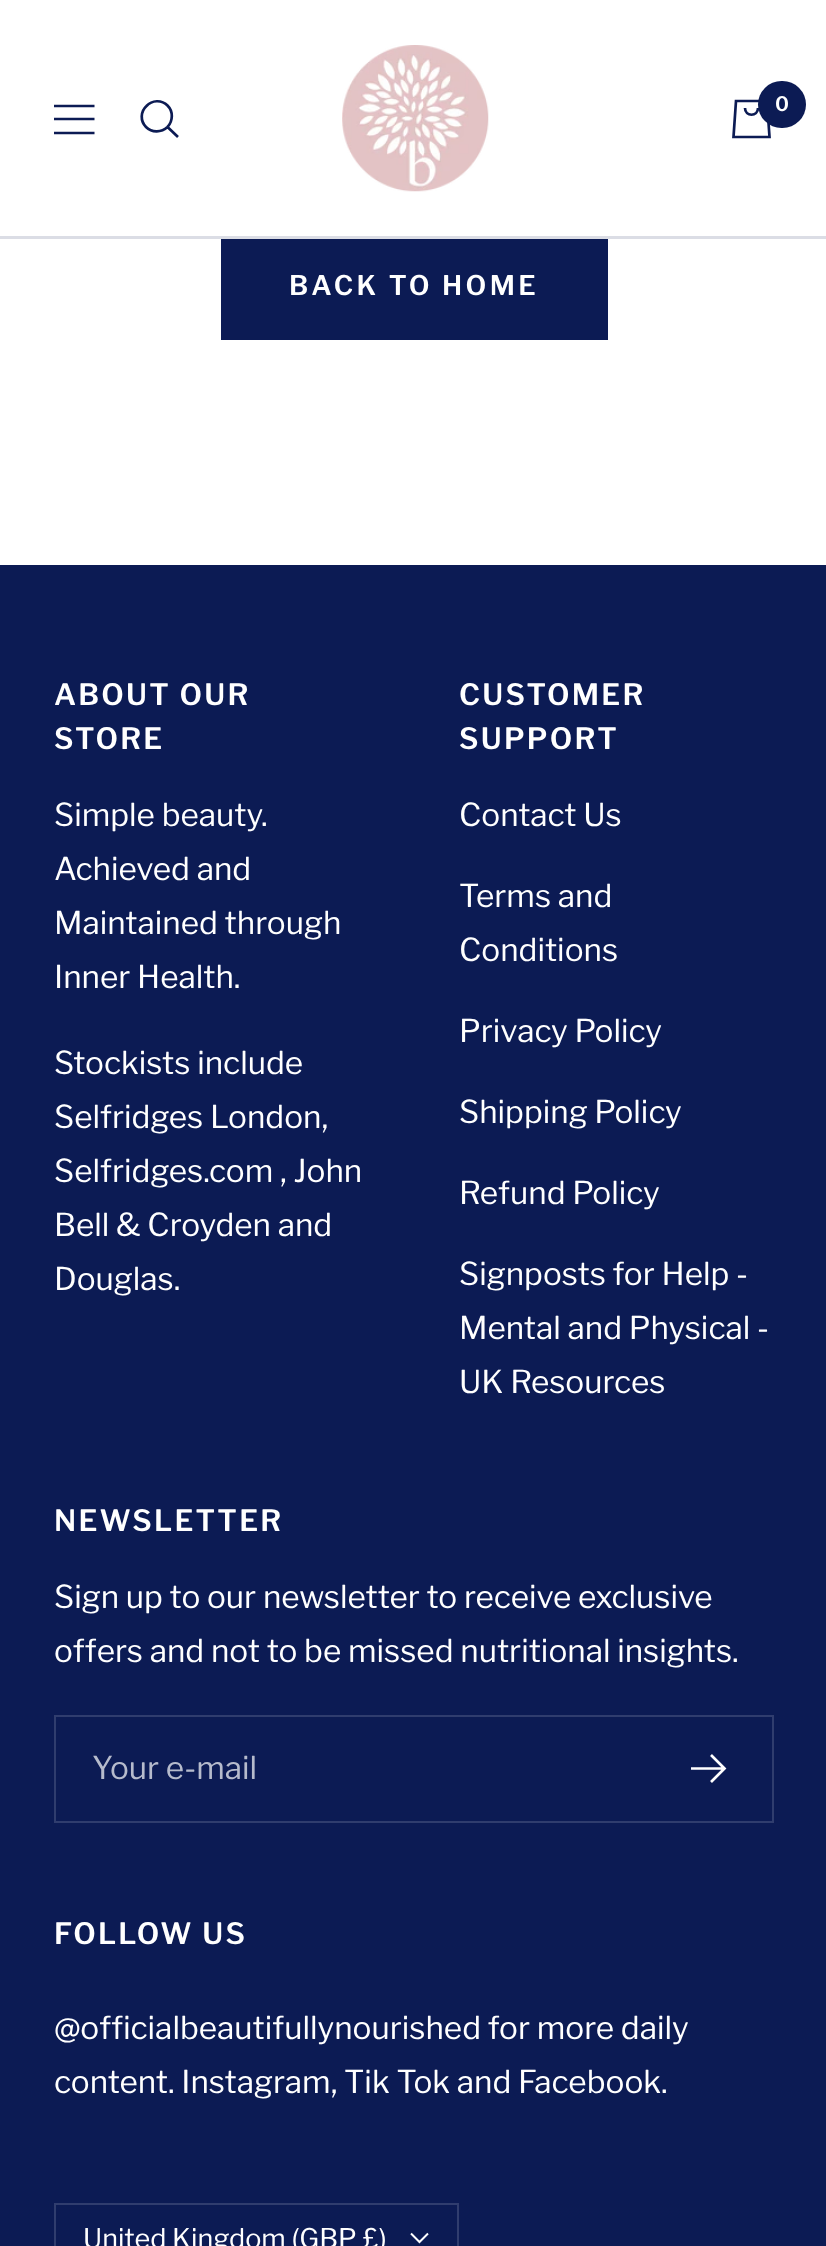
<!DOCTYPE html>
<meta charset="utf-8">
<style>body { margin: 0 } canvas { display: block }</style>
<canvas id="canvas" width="826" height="2246"></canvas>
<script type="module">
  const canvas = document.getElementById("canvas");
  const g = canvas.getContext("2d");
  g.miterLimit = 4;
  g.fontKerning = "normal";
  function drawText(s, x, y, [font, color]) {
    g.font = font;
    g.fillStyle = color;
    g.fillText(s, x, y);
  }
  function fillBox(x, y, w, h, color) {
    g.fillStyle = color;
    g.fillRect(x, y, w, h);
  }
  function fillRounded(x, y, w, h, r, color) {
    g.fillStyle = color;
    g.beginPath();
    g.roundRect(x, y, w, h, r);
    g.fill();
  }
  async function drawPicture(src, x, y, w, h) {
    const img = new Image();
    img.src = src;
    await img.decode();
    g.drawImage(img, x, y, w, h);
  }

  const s1 = ["600 20px Libre Franklin", "#FFFFFF"];
  const s2 = ["600 27px Libre Franklin", "#FFFFFF"];
  const s3 = ["600 29.25px Libre Franklin", "#FFFFFF"];
  const s4 = ["31.5px Libre Franklin", "#FFFFFF"];
  const s5 = ["31.5px Libre Franklin", "#B6BBCC"];
  const s6 = ["27px Libre Franklin", "#FFFFFF"];

  fillBox(0, 0, 826, 2246, "#FFFFFF");
  fillBox(0, 236, 826, 3, "#DBDDE5");
  g.beginPath();
  g.moveTo(54, 106);
  g.lineTo(94.5, 106);
  g.moveTo(54, 133);
  g.lineTo(94.5, 133);
  g.closePath();
  g.moveTo(54, 119);
  g.lineTo(94.5, 119);
  g.closePath();
  g.strokeStyle = "#0C1B54";
  g.lineWidth = 2.7;
  g.stroke();
  g.beginPath();
  g.moveTo(167.5, 127);
  g.bezierCurveTo(173, 121, 173.5, 111.5, 167.5, 105.5);
  g.bezierCurveTo(161.5, 99.5, 152, 100, 146.5, 106);
  g.bezierCurveTo(140.5, 111.5, 140, 121, 146, 127);
  g.bezierCurveTo(152, 133, 161.5, 132.5, 167.5, 127);
  g.closePath();
  g.moveTo(167.5, 127);
  g.lineTo(178, 137);
  g.stroke();
  await drawPicture("pic1.png", 342, 45, 147, 147);
  g.beginPath();
  g.moveTo(736, 101);
  g.lineTo(767, 101);
  g.lineTo(769.5, 137);
  g.lineTo(733.5, 137);
  g.closePath();
  g.moveTo(745, 108);
  g.bezierCurveTo(745, 117, 758, 117, 758, 108);
  g.stroke();
  fillRounded(758, 81, 48, 47, 23.5, "#0C1B54");
  drawText("0", 775, 111, s1);
  fillBox(221, 239, 387, 101, "#0C1B54");
  g.letterSpacing = "3.4px";
  drawText("BACK TO HOME", 289, 295, s2);
  fillBox(0, 565, 826, 1681, "#0C1B54");
  g.letterSpacing = "2.25px";
  drawText("ABOUT OUR", 54, 705, s3);
  drawText("STORE", 54, 749, s3);
  g.letterSpacing = "0px";
  drawText("Simple beauty.", 54, 826, s4);
  drawText("Achieved and", 54, 880, s4);
  drawText("Maintained through", 54, 934, s4);
  drawText("Inner Health.", 54, 988, s4);
  drawText("Stockists include", 54, 1074, s4);
  drawText("Selfridges London,", 54, 1128, s4);
  drawText("Selfridges.com , John", 54, 1182, s4);
  drawText("Bell & Croyden and", 54, 1236, s4);
  drawText("Douglas.", 54, 1290, s4);
  g.letterSpacing = "2.25px";
  drawText("CUSTOMER", 459, 705, s3);
  drawText("SUPPORT", 459, 749, s3);
  g.letterSpacing = "0px";
  drawText("Contact Us", 459, 826, s4);
  drawText("Terms and", 459, 907, s4);
  drawText("Conditions", 459, 961, s4);
  drawText("Privacy Policy", 459, 1042, s4);
  drawText("Shipping Policy", 459, 1123, s4);
  drawText("Refund Policy", 459, 1204, s4);
  drawText("Signposts for Help -", 459, 1285, s4);
  drawText("Mental and Physical -", 459, 1339, s4);
  drawText("UK Resources", 459, 1393, s4);
  g.letterSpacing = "2.25px";
  drawText("NEWSLETTER", 54, 1531, s3);
  g.letterSpacing = "0px";
  drawText("Sign up to our newsletter to receive exclusive", 54, 1608, s4);
  drawText("offers and not to be missed nutritional insights.", 54, 1662, s4);
  g.strokeStyle = "#303D6E";
  g.lineWidth = 2;
  g.strokeRect(55, 1716, 718, 106);
  drawText("Your e-mail", 92, 1779, s5);
  g.beginPath();
  g.moveTo(691, 1768.5);
  g.lineTo(724.5, 1768.5);
  g.moveTo(711, 1755);
  g.lineTo(724.5, 1768.5);
  g.lineTo(711, 1782);
  g.strokeStyle = "#FFFFFF";
  g.lineWidth = 2.7;
  g.stroke();
  g.letterSpacing = "2.25px";
  drawText("FOLLOW US", 54, 1944, s3);
  g.letterSpacing = "0px";
  drawText("@officialbeautifullynourished for more daily", 54, 2039, s4);
  drawText("content. Instagram, Tik Tok and Facebook.", 54, 2093, s4);
  g.strokeStyle = "#303D6E";
  g.lineWidth = 2;
  g.strokeRect(55, 2204, 403, 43);
  drawText("United Kingdom (GBP £)", 83, 2248, s6);
  g.beginPath();
  g.moveTo(411, 2233.5);
  g.lineTo(419.5, 2242);
  g.lineTo(428, 2233.5);
  g.strokeStyle = "#FFFFFF";
  g.stroke();
</script>
